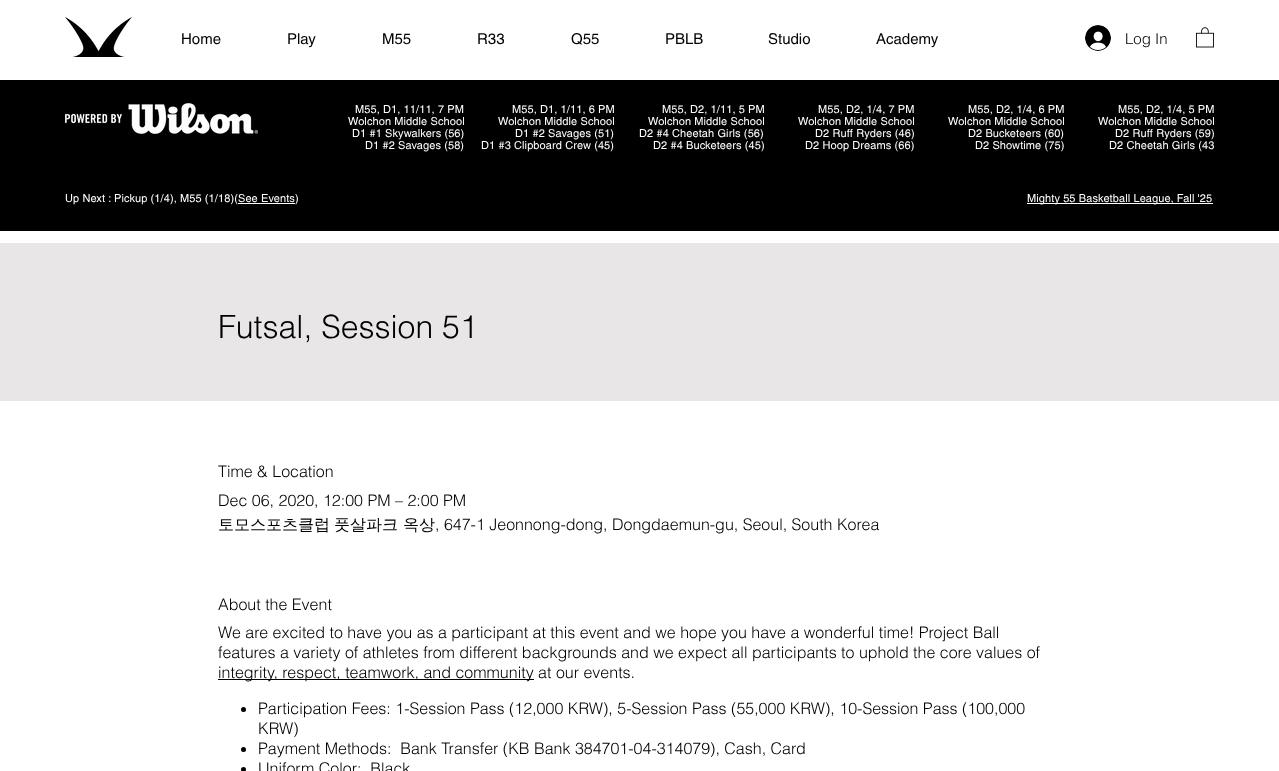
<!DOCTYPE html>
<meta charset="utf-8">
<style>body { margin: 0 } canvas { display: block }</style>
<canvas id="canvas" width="1279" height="771"></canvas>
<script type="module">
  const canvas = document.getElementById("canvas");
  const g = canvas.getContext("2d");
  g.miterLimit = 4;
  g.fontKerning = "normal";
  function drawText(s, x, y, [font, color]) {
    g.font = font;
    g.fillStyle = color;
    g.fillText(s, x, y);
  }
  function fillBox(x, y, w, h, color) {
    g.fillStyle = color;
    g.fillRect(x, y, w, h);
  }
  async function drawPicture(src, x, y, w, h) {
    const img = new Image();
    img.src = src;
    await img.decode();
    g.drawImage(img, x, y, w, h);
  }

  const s1 = ["15px helvetica", "#000000"];
  const s2 = ["300 15px helvetica", "#000000"];
  const s3 = ["11px helvetica", "#FFFFFF"];
  const s4 = ["300 32px helvetica", "#000000"];
  const s5 = ["300 16px helvetica", "#000000"];
  const s6 = ["500 16px WenQuanYi Zen Hei", "#000000"];

  fillBox(0, 0, 1279, 771, "#FFFFFF");
  await drawPicture("pic1.png", 65, 17, 67, 40);
  drawText("Home", 181, 44, s1);
  drawText("Play", 287, 44, s1);
  drawText("M55", 382, 44, s1);
  drawText("R33", 477, 44, s1);
  drawText("Q55", 571, 44, s1);
  drawText("PBLB", 665, 44, s1);
  drawText("Studio", 768, 44, s1);
  drawText("Academy", 876, 44, s1);
  await drawPicture("pic2.png", 1085, 25, 26, 26);
  drawText("Log In", 1125, 44, s2);
  await drawPicture("pic3.png", 1196, 27, 18, 21);
  fillBox(0, 80, 1279, 151, "#000000");
  await drawPicture("pic4.png", 65, 103, 193, 31);
  g.letterSpacing = "0.1px";
  drawText("M55, D1, 11/11, 7 PM", 355, 113, s3);
  drawText("Wolchon Middle School", 348, 125, s3);
  drawText("D1 #1 Skywalkers (56)", 352, 137, s3);
  drawText("D1 #2 Savages (58)", 365, 149, s3);
  drawText("M55, D1, 1/11, 6 PM", 512, 113, s3);
  drawText("Wolchon Middle School", 498, 125, s3);
  drawText("D1 #2 Savages (51)", 515, 137, s3);
  drawText("D1 #3 Clipboard Crew (45)", 481, 149, s3);
  drawText("M55, D2, 1/11, 5 PM", 662, 113, s3);
  drawText("Wolchon Middle School", 648, 125, s3);
  drawText("D2 #4 Cheetah Girls (56)", 639, 137, s3);
  drawText("D2 #4 Bucketeers (45)", 653, 149, s3);
  drawText("M55, D2, 1/4, 7 PM", 818, 113, s3);
  drawText("Wolchon Middle School", 798, 125, s3);
  drawText("D2 Ruff Ryders (46)", 815, 137, s3);
  drawText("D2 Hoop Dreams (66)", 805, 149, s3);
  drawText("M55, D2, 1/4, 6 PM", 968, 113, s3);
  drawText("Wolchon Middle School", 948, 125, s3);
  drawText("D2 Bucketeers (60)", 968, 137, s3);
  drawText("D2 Showtime (75)", 975, 149, s3);
  drawText("M55, D2, 1/4, 5 PM", 1118, 113, s3);
  drawText("Wolchon Middle School", 1098, 125, s3);
  drawText("D2 Ruff Ryders (59)", 1115, 137, s3);
  drawText("D2 Cheetah Girls (43", 1109, 149, s3);
  drawText("Up Next : Pickup (1/4), M55 (1/18)(See Events)", 65, 202, s3);
  fillBox(238, 203, 57, 1, "#FFFFFF");
  fillBox(1027, 203, 186, 1, "#FFFFFF");
  drawText("Mighty 55 Basketball League, Fall '25", 1027, 202, s3);
  fillBox(0, 243, 1279, 158, "#E8E6E6");
  g.letterSpacing = "0px";
  drawText("Futsal, Session 51", 218, 338, s4);
  drawText("Time & Location", 218, 477, s5);
  drawText("Dec 06, 2020, 12:00 PM – 2:00 PM", 218, 506, s5);
  drawText("토모스포츠클럽", 218, 530, s6);
  drawText("풋살파크", 334, 530, s6);
  drawText("옥상", 403, 530, s6);
  drawText(", 647-1 Jeonnong-dong, Dongdaemun-gu, Seoul, South Korea", 435, 530, s5);
  drawText("About the Event", 218, 610, s5);
  drawText("We are excited to have you as a participant at this event and we hope you have a wonderful time! Project Ball", 218, 638, s5);
  drawText("features a variety of athletes from different backgrounds and we expect all participants to uphold the core values of", 218, 658, s5);
  fillBox(218, 679, 316, 1, "#000000");
  drawText("integrity, respect, teamwork, and community at our events.", 218, 678, s5);
  g.beginPath();
  g.arc(243.5, 709.5, 2.5, 0, Math.PI * 2);
  g.fill();
  drawText("Participation Fees: 1-Session Pass (12,000 KRW), 5-Session Pass (55,000 KRW), 10-Session Pass (100,000", 258, 714, s5);
  drawText("KRW)", 258, 734, s5);
  g.beginPath();
  g.arc(243.5, 749.5, 2.5, 0, Math.PI * 2);
  g.fill();
  drawText("Payment Methods:  Bank Transfer (KB Bank 384701-04-314079), Cash, Card", 258, 754, s5);
  g.beginPath();
  g.arc(243.5, 769.5, 2.5, 0, Math.PI * 2);
  g.fill();
  drawText("Uniform Color:  Black", 258, 774, s5);
</script>
